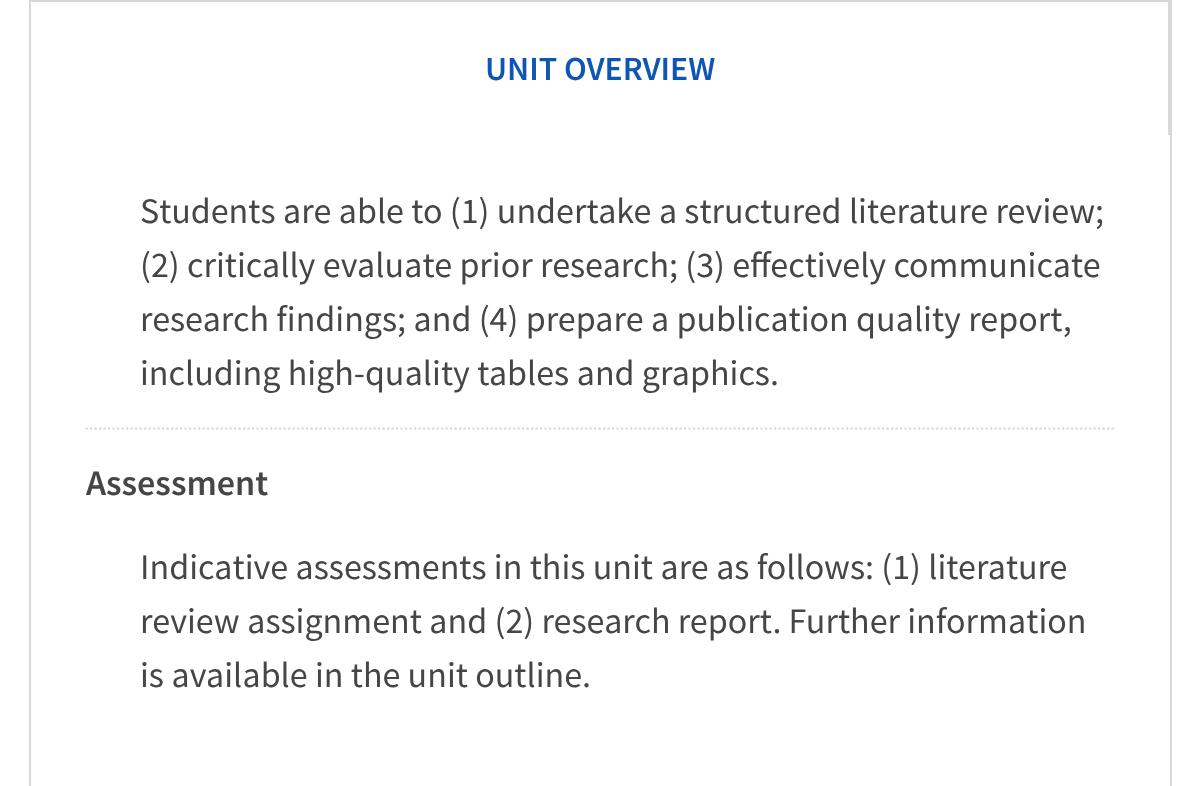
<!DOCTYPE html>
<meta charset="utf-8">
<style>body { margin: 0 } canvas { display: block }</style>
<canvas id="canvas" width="1200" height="786"></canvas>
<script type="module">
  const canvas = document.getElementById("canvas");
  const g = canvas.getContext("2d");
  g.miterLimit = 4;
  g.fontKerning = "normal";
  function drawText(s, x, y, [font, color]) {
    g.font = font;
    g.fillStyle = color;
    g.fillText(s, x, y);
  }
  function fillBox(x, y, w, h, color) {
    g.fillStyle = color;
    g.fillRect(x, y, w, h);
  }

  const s1 = ["600 33.75px Source Sans Pro", "#0E55B5"];
  const s2 = ["36px Source Sans Pro", "#464646"];
  const s3 = ["600 36px Source Sans Pro", "#464646"];

  fillBox(0, 0, 1200, 786, "#FFFFFF");
  fillBox(29, 0, 1141, 2, "#D8D8D8");
  fillBox(1168, 0, 2, 135, "#D8D8D8");
  fillBox(29, 0, 2, 135, "#D8D8D8");
  drawText("UNIT OVERVIEW", 485, 80, s1);
  fillBox(1170, 0, 2, 786, "#D8D8D8");
  fillBox(29, 135, 2, 651, "#D8D8D8");
  drawText("Students are able to (1) undertake a structured literature review;", 140, 223, s2);
  drawText("(2) critically evaluate prior research; (3) effectively communicate", 140, 277, s2);
  drawText("research findings; and (4) prepare a publication quality report,", 140, 331, s2);
  drawText("including high-quality tables and graphics.", 140, 385, s2);
  g.beginPath();
  g.moveTo(85.5, 428.5);
  g.lineTo(1116, 428.5);
  g.strokeStyle = "#D8D8D8";
  g.lineWidth = 2.2;
  g.setLineDash([2.25, 2.25]);
  g.stroke();
  drawText("Assessment", 86, 495, s3);
  drawText("Indicative assessments in this unit are as follows: (1) literature", 140, 579, s2);
  drawText("review assignment and (2) research report. Further information", 140, 633, s2);
  drawText("is available in the unit outline.", 140, 687, s2);
</script>
